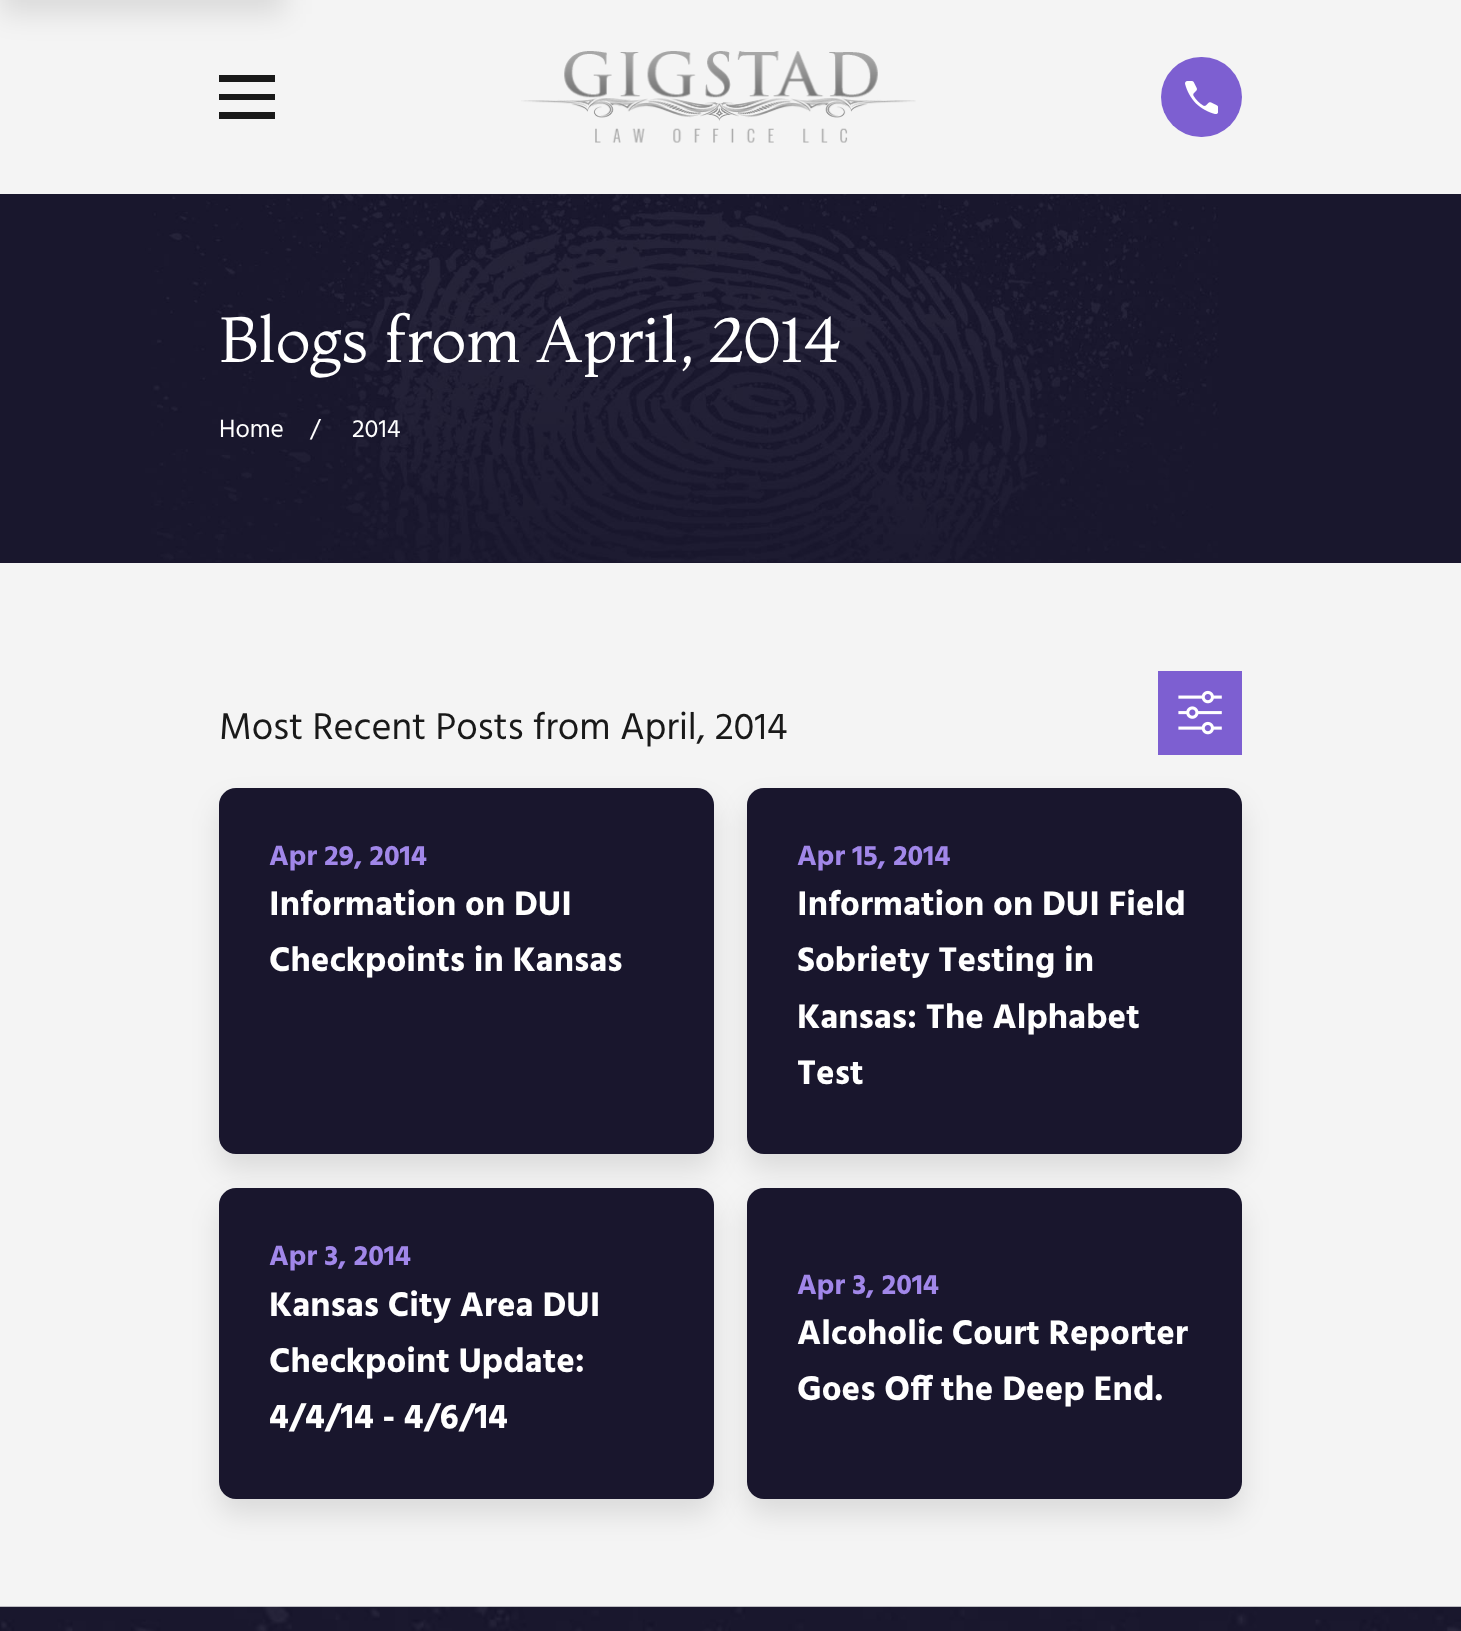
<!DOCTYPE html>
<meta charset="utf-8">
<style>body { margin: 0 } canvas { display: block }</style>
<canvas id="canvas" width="1461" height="1631"></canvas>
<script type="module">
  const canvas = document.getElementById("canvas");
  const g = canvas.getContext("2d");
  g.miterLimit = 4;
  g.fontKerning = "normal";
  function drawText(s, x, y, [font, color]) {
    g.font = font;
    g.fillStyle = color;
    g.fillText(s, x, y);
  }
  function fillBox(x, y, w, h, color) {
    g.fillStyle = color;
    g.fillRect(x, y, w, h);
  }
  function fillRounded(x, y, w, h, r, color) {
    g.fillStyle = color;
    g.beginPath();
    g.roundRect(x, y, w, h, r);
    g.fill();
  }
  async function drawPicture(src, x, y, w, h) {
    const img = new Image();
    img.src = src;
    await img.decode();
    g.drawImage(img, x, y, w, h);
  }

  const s1 = ["63.75px Montaga", "#FFFFFF"];
  const s2 = ["25.5px Hind", "#FFFFFF"];
  const s3 = ["38.25px Hind", "#191919"];
  const s4 = ["bold 28.75px Hind", "#A187E9"];
  const s5 = ["bold 35px Hind", "#FFFFFF"];

  fillBox(0, 0, 1461, 1631, "#F4F4F4");
  g.fillStyle = "rgba(0, 0, 0, 0.1)";
  g.filter = "blur(14px)";
  g.beginPath();
  g.rect(0, -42, 285, 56);
  g.fill();
  g.filter = "none";
  g.fillStyle = "#191919";
  g.beginPath();
  g.moveTo(219, 75);
  g.lineTo(219, 82);
  g.lineTo(275, 82);
  g.lineTo(275, 75);
  g.closePath();
  g.moveTo(219, 94);
  g.lineTo(219, 100);
  g.lineTo(275, 100);
  g.lineTo(275, 94);
  g.closePath();
  g.moveTo(219, 112);
  g.lineTo(219, 119);
  g.lineTo(275, 119);
  g.lineTo(275, 112);
  g.closePath();
  g.fill();
  await drawPicture("pic1.png", 521, 51, 395, 92);
  fillRounded(1161, 57, 81, 80, 40, "#7D5FD1");
  await drawPicture("pic2.png", 1185, 81, 33, 33);
  fillBox(0, 562, 1461, 1, "#19162D");
  await drawPicture("pic3.png", 0, 194, 1461, 368);
  drawText("Blogs from April, 2014", 219, 362, s1);
  drawText("Home", 219, 437, s2);
  drawText("/", 310, 437, s2);
  drawText("2014", 352, 437, s2);
  drawText("Most Recent Posts from April, 2014", 219, 739, s3);
  fillBox(1158, 671, 84, 84, "#7D5FD1");
  await drawPicture("pic4.png", 1178, 690, 44, 45);
  g.fillStyle = "rgba(0, 0, 0, 0.1)";
  g.filter = "blur(14px)";
  g.beginPath();
  g.roundRect(219, 803, 495, 366, 17);
  g.fill();
  g.filter = "none";
  fillRounded(219, 788, 495, 366, 17, "#19162D");
  drawText("Apr 29, 2014", 269, 865, s4);
  drawText("Information on DUI", 269, 915, s5);
  drawText("Checkpoints in Kansas", 269, 971, s5);
  g.fillStyle = "rgba(0, 0, 0, 0.1)";
  g.filter = "blur(14px)";
  g.beginPath();
  g.roundRect(747, 803, 495, 366, 17);
  g.fill();
  g.filter = "none";
  fillRounded(747, 788, 495, 366, 17, "#19162D");
  drawText("Apr 15, 2014", 797, 865, s4);
  drawText("Information on DUI Field", 797, 915, s5);
  drawText("Sobriety Testing in", 797, 971, s5);
  drawText("Kansas: The Alphabet", 797, 1028, s5);
  drawText("Test", 797, 1084, s5);
  g.fillStyle = "rgba(0, 0, 0, 0.1)";
  g.filter = "blur(14px)";
  g.beginPath();
  g.roundRect(219, 1203, 495, 311, 17);
  g.fill();
  g.filter = "none";
  fillRounded(219, 1188, 495, 311, 17, "#19162D");
  drawText("Apr 3, 2014", 269, 1265, s4);
  drawText("Kansas City Area DUI", 269, 1316, s5);
  drawText("Checkpoint Update:", 269, 1372, s5);
  drawText("4/4/14 - 4/6/14", 269, 1428, s5);
  g.fillStyle = "rgba(0, 0, 0, 0.1)";
  g.filter = "blur(14px)";
  g.beginPath();
  g.roundRect(747, 1203, 495, 311, 17);
  g.fill();
  g.filter = "none";
  fillRounded(747, 1188, 495, 311, 17, "#19162D");
  drawText("Apr 3, 2014", 797, 1294, s4);
  drawText("Alcoholic Court Reporter", 797, 1344, s5);
  drawText("Goes Off the Deep End.", 797, 1400, s5);
  await drawPicture("pic5.png", 0, 1606, 1461, 25);
</script>
